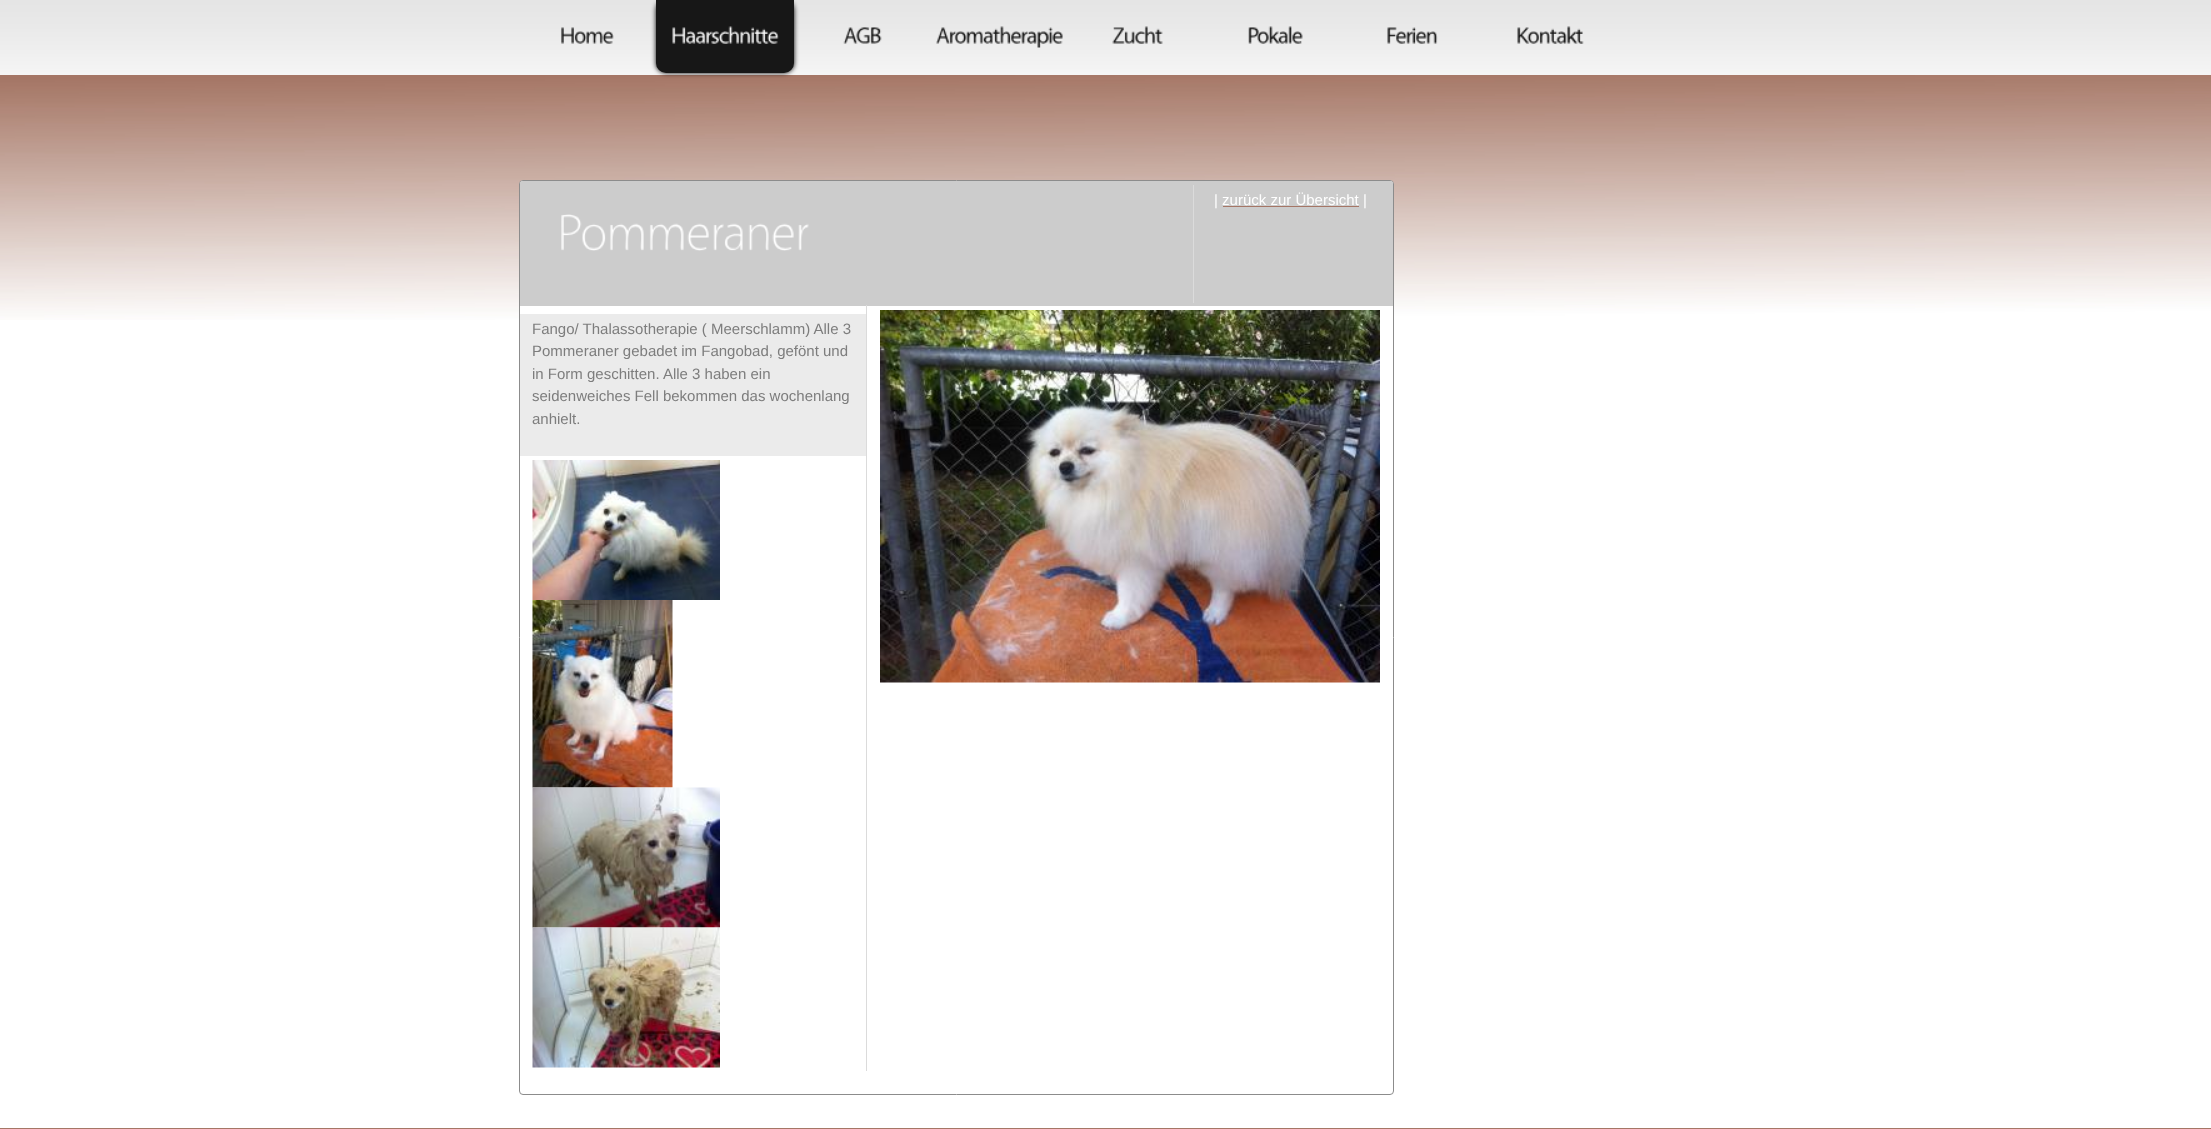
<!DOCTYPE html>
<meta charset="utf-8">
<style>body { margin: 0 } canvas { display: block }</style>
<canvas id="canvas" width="2211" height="1129"></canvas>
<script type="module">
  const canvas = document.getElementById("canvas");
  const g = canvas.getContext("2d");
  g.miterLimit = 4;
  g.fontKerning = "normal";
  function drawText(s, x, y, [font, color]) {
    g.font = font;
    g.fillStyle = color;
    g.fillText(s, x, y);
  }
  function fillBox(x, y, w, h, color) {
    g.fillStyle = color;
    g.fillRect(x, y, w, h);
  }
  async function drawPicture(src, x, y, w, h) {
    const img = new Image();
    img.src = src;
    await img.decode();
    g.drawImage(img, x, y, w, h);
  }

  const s1 = ["15px Liberation Sans", "#FFFFFF"];
  const s2 = ["15px Liberation Sans", "#7D7D7D"];

  fillBox(0, 0, 2211, 1129, "#FFFFFF");
  await drawPicture("pic1.png", 0, 75, 2211, 245);
  await drawPicture("pic2.png", 0, 0, 2211, 75);
  await drawPicture("pic3.png", 561, 27, 53, 17);
  g.fillStyle = "#000000";
  g.filter = "blur(2.5px)";
  g.beginPath();
  g.roundRect(656, 0, 138, 73, 10);
  g.fill();
  g.filter = "none";
  g.fillStyle = "#171717";
  g.beginPath();
  g.roundRect(656, 0, 138, 73, [0, 0, 10, 10]);
  g.fill();
  await drawPicture("pic4.png", 672, 26, 107, 18);
  await drawPicture("pic5.png", 843, 27, 39, 17);
  await drawPicture("pic6.png", 936, 26, 127, 22);
  await drawPicture("pic7.png", 1112, 26, 51, 18);
  await drawPicture("pic8.png", 1248, 26, 55, 18);
  await drawPicture("pic9.png", 1387, 27, 51, 17);
  await drawPicture("pic10.png", 1517, 26, 67, 18);
  g.fillStyle = "#FFFFFF";
  g.beginPath();
  g.roundRect(519.5, 180.5, 874, 914, 3.5);
  g.fill();
  g.strokeStyle = "#8C8C8C";
  g.stroke();
  g.fillStyle = "#CCCCCC";
  g.beginPath();
  g.roundRect(520, 181, 873, 125, [2.5, 2.5, 0, 0]);
  g.fill();
  fillBox(1193, 185, 1, 118, "#DBDBDB");
  drawText("| zurück zur Übersicht |", 1214, 205, s1);
  fillBox(1223, 206, 136, 1, "#A57666");
  await drawPicture("pic11.png", 561, 214, 248, 37);
  fillBox(520, 314, 346, 142, "#EBEBEB");
  drawText("Fango/ Thalassotherapie ( Meerschlamm) Alle 3", 532, 334, s2);
  drawText("Pommeraner gebadet im Fangobad, gefönt und", 532, 356, s2);
  drawText("in Form geschitten. Alle 3 haben ein", 532, 379, s2);
  drawText("seidenweiches Fell bekommen das wochenlang", 532, 401, s2);
  drawText("anhielt.", 532, 424, s2);
  fillBox(866, 305, 1, 766, "#DBDBDB");
  await drawPicture("pic12.png", 880, 310, 500, 373);
  await drawPicture("pic13.png", 532, 460, 188, 140);
  await drawPicture("pic14.png", 532, 600, 141, 188);
  await drawPicture("pic15.png", 532, 787, 188, 141);
  await drawPicture("pic16.png", 532, 927, 188, 141);
  fillBox(0, 1128, 2211, 1, "#A57666");
</script>
